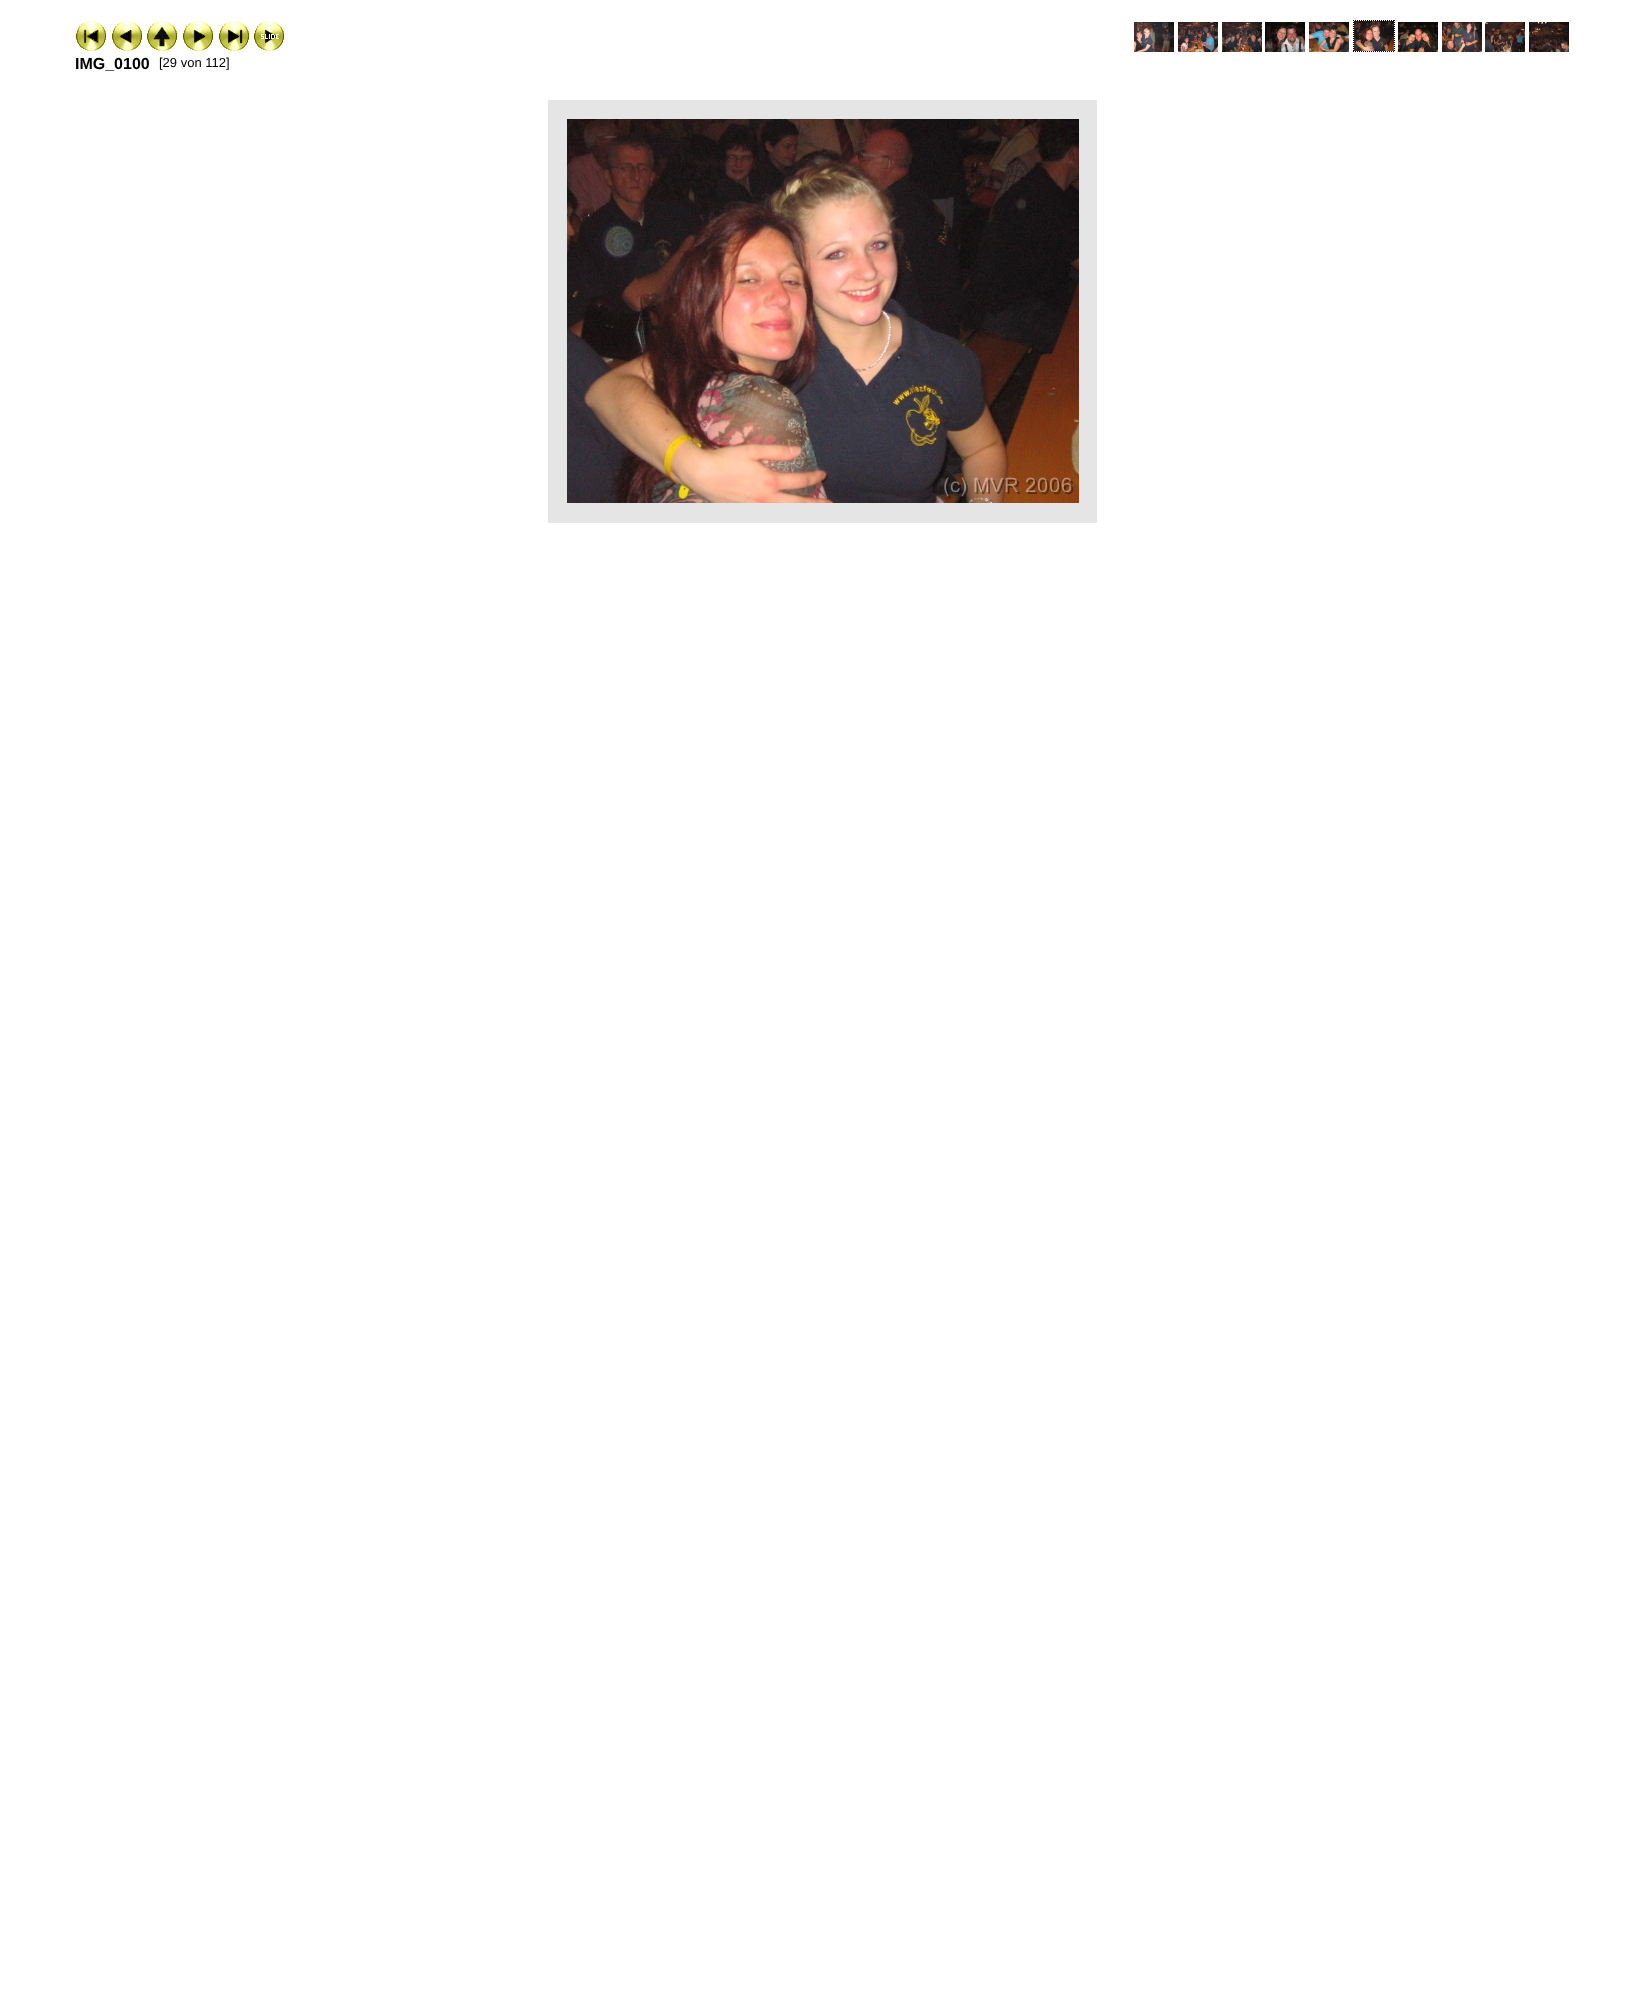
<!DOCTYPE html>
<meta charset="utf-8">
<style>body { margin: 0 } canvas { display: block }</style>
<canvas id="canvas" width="1634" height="2001"></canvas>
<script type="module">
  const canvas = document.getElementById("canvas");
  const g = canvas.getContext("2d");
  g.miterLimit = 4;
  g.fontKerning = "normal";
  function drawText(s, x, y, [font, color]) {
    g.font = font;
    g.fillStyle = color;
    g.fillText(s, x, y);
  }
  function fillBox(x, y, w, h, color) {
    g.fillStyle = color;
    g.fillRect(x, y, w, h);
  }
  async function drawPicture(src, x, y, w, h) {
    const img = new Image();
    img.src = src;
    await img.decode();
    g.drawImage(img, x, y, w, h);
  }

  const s1 = ["bold 16px Liberation Sans", "#000000"];
  const s2 = ["13px Liberation Sans", "#000000"];

  fillBox(0, 0, 1634, 2001, "#FFFFFF");
  await drawPicture("pic1.png", 76, 21, 30, 30);
  await drawPicture("pic2.png", 112, 21, 30, 30);
  await drawPicture("pic3.png", 147, 21, 30, 30);
  await drawPicture("pic4.png", 183, 21, 30, 30);
  await drawPicture("pic5.png", 219, 21, 30, 30);
  await drawPicture("pic6.png", 254, 21, 30, 30);
  g.beginPath();
  g.moveTo(1353, 20.5);
  g.lineTo(1395, 20.5);
  g.moveTo(1394.5, 20);
  g.lineTo(1394.5, 52);
  g.moveTo(1353, 51.5);
  g.lineTo(1395, 51.5);
  g.moveTo(1353.5, 20);
  g.lineTo(1353.5, 52);
  g.strokeStyle = "#000000";
  g.setLineDash([1, 1]);
  g.stroke();
  await drawPicture("pic7.png", 1134, 22, 40, 30);
  await drawPicture("pic8.png", 1178, 22, 40, 30);
  await drawPicture("pic9.png", 1222, 22, 40, 30);
  await drawPicture("pic10.png", 1265, 22, 40, 30);
  await drawPicture("pic11.png", 1309, 22, 40, 30);
  await drawPicture("pic12.png", 1354, 21, 40, 30);
  await drawPicture("pic13.png", 1398, 22, 40, 30);
  await drawPicture("pic14.png", 1442, 22, 40, 30);
  await drawPicture("pic15.png", 1485, 22, 40, 30);
  await drawPicture("pic16.png", 1529, 22, 40, 30);
  drawText("IMG_0100", 75, 69, s1);
  drawText("[29 von 112]", 159, 67, s2);
  fillBox(548, 100, 549, 423, "#E5E5E5");
  await drawPicture("pic17.png", 567, 119, 512, 384);
</script>
